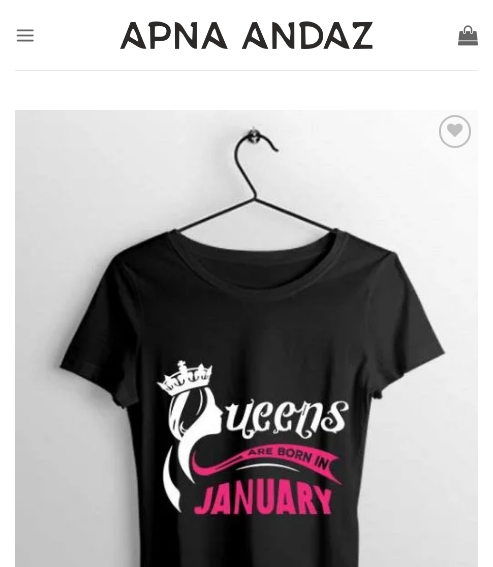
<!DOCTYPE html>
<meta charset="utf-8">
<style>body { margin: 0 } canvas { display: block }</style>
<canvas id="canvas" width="493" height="567"></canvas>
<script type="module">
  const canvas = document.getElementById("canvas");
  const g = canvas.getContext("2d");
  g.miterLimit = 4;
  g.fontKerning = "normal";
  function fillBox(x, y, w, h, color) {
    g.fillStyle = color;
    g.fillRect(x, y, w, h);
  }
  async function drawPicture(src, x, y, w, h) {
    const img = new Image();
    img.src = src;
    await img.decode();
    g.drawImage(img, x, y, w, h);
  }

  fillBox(0, 0, 493, 567, "#FFFFFF");
  await drawPicture("pic1.png", 16, 29, 18, 13);
  await drawPicture("pic2.png", 120, 21, 253, 28);
  await drawPicture("pic3.png", 458, 25, 20, 21);
  fillBox(15, 70, 463, 1, "#E7E7E7");
  await drawPicture("pic4.png", 15, 110, 463, 457);
  g.beginPath();
  g.roundRect(440, 116, 30, 31, 15);
  g.strokeStyle = "#C0C0C0";
  g.lineWidth = 2;
  g.stroke();
  await drawPicture("pic5.png", 447, 123, 16, 14);
</script>
